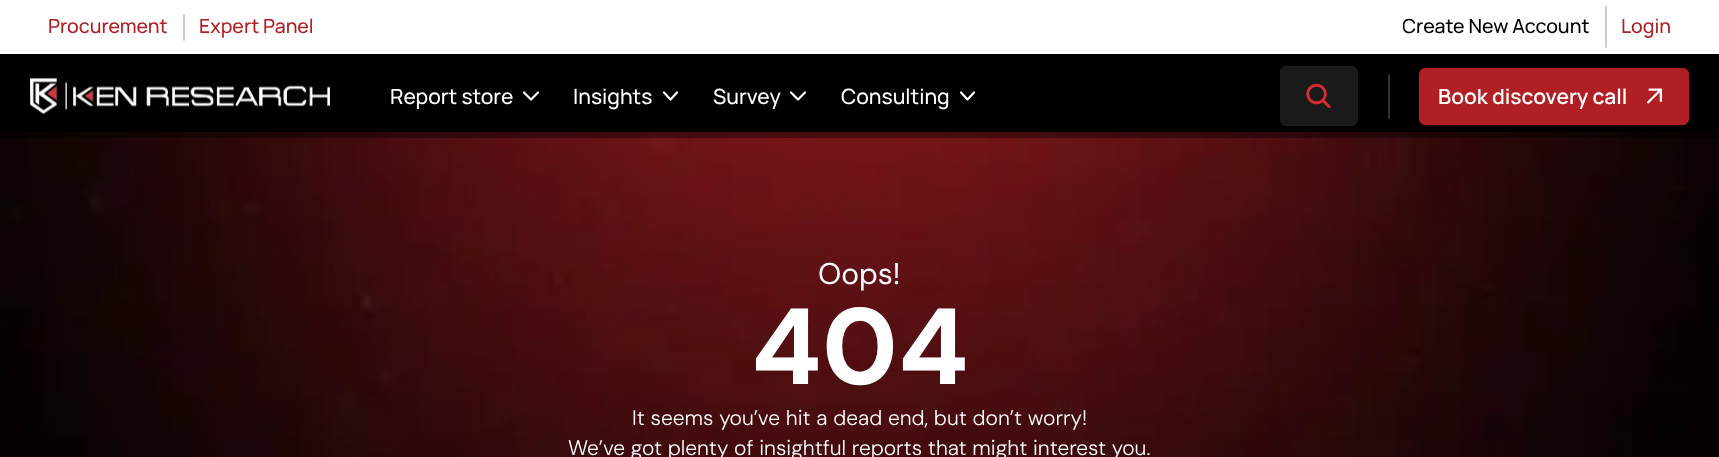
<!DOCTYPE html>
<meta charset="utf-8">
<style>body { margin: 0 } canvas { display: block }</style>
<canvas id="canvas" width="1719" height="457"></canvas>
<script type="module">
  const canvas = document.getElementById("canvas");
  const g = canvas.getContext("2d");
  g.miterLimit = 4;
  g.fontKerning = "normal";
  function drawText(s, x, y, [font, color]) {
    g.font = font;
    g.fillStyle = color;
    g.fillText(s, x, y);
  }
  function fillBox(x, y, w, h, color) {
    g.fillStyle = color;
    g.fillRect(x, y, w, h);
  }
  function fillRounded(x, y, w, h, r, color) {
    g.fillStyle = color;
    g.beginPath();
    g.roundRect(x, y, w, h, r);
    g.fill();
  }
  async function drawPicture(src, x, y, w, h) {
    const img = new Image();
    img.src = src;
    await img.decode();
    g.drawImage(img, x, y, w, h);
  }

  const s1 = ["500 19.5px Manrope", "#B01F24"];
  const s2 = ["500 19.5px Manrope", "#000000"];
  const s3 = ["500 21px Manrope", "#FFFFFF"];
  const s4 = ["600 21px Manrope", "#FFFFFF"];
  const s5 = ["30px DM Sans", "#FFFFFF"];
  const s6 = ["800 108px DM Sans", "#FFFFFF"];
  const s7 = ["300 21px DM Sans", "#FFFFFF"];

  fillBox(0, 0, 1719, 457, "#FFFFFF");
  fillBox(0, 54, 1719, 78, "#000000");
  drawText("Procurement", 48, 33, s1);
  fillRounded(183, 14, 2, 27, 1, "#CCCCCC");
  drawText("Expert Panel", 199, 33, s1);
  g.save();
  g.beginPath();
  g.rect(1403, 6, 268, 42);
  g.clip();
  drawText("Create New Account", 1402, 33, s2);
  g.restore();
  fillRounded(1605, 6, 2, 42, 1, "#CCCCCC");
  drawText("Login", 1621, 33, s1);
  await drawPicture("pic4.png", 0, 132, 1719, 325);
  fillBox(0, 132, 1719, 6, "rgba(0, 0, 0, 0.4)");
  await drawPicture("pic1.png", 30, 77, 300, 38);
  drawText("Report store", 390, 104, s3);
  g.beginPath();
  g.moveTo(524, 92.5);
  g.lineTo(531, 99.5);
  g.lineTo(538, 92.5);
  g.strokeStyle = "#FFFFFF";
  g.lineWidth = 2.2;
  g.lineCap = "round";
  g.lineJoin = "round";
  g.stroke();
  drawText("Insights", 573, 104, s3);
  g.beginPath();
  g.moveTo(664, 92.5);
  g.lineTo(670.5, 99.5);
  g.lineTo(677, 92.5);
  g.stroke();
  drawText("Survey", 713, 104, s3);
  g.beginPath();
  g.moveTo(791, 92.5);
  g.lineTo(798, 99.5);
  g.lineTo(805, 92.5);
  g.stroke();
  drawText("Consulting", 841, 104, s3);
  g.beginPath();
  g.moveTo(961, 92.5);
  g.lineTo(967.5, 99.5);
  g.lineTo(974, 92.5);
  g.stroke();
  fillRounded(1280, 66, 78, 60, 6, "#1A1A1A");
  await drawPicture("pic2.png", 1306, 83, 25, 26);
  fillRounded(1388, 74, 2, 45, 1, "#333333");
  g.fillStyle = "#B01F24";
  g.beginPath();
  g.roundRect(1420, 69, 268, 55, 5);
  g.fill();
  g.strokeStyle = "#B01F24";
  g.lineWidth = 2;
  g.lineJoin = "miter";
  g.stroke();
  drawText("Book discovery call", 1438, 104, s4);
  await drawPicture("pic3.png", 1647, 88, 15, 16);
  drawText("Oops!", 818, 284, s5);
  drawText("404", 751, 384, s6);
  drawText("It seems you’ve hit a dead end, but don’t worry!", 632, 425, s7);
  drawText("We’ve got plenty of insightful reports that might interest you.", 568, 455, s7);
</script>
